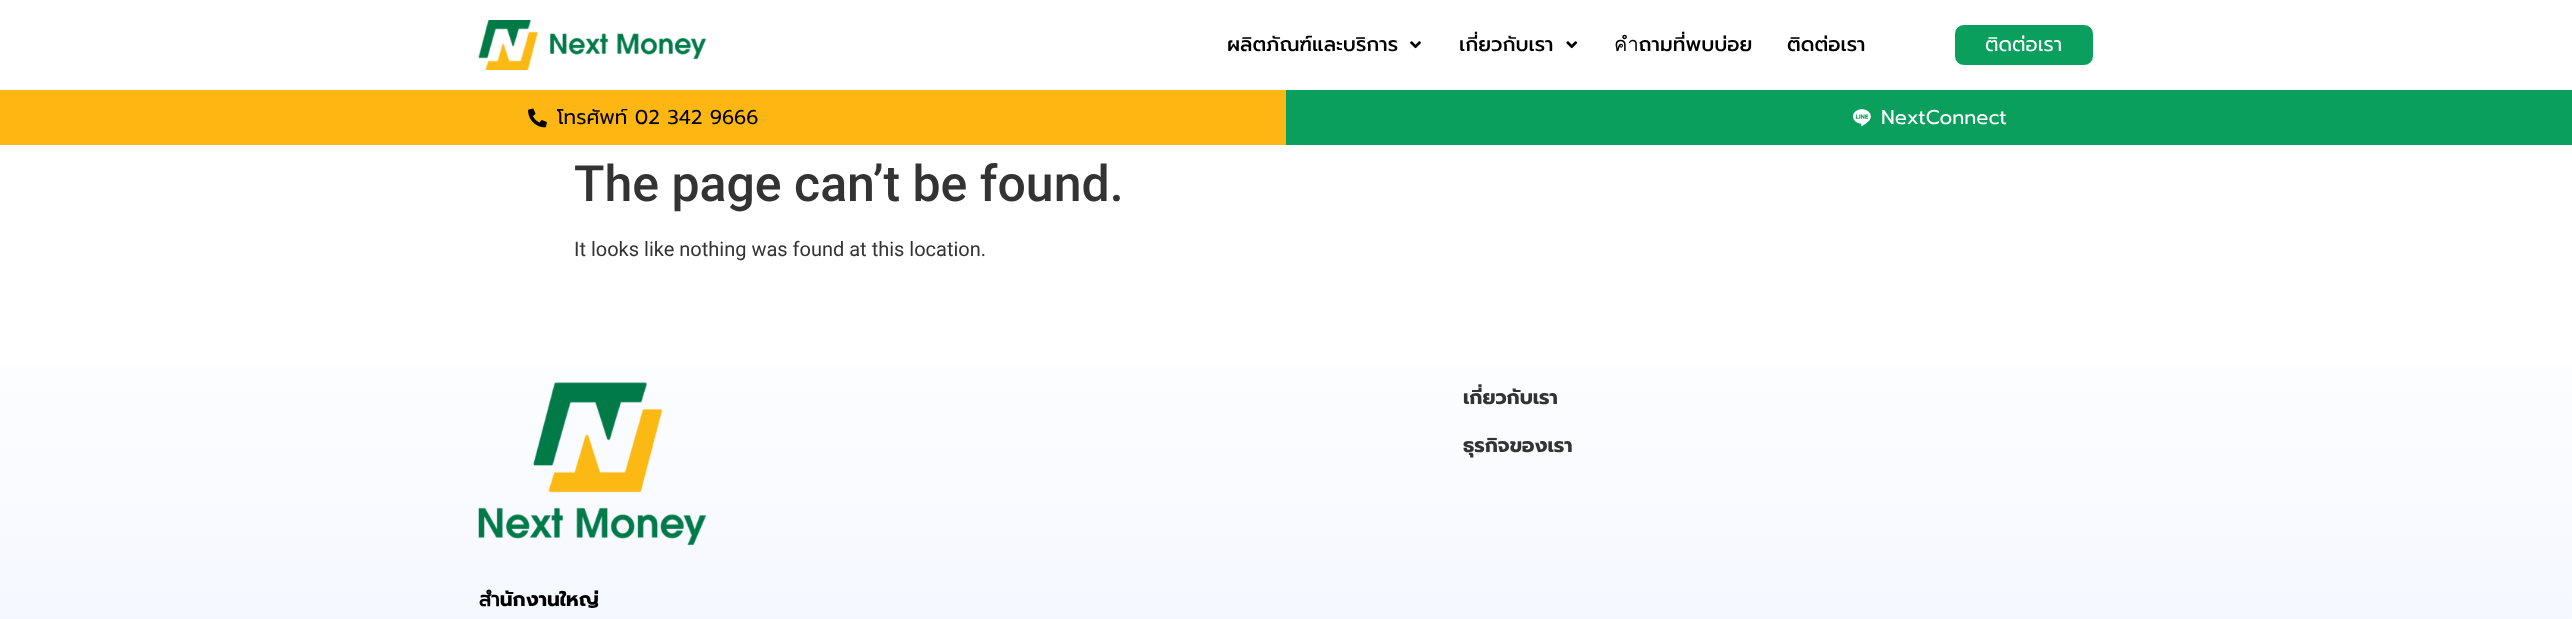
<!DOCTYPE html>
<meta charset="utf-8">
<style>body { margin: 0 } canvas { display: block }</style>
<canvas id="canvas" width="2572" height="619"></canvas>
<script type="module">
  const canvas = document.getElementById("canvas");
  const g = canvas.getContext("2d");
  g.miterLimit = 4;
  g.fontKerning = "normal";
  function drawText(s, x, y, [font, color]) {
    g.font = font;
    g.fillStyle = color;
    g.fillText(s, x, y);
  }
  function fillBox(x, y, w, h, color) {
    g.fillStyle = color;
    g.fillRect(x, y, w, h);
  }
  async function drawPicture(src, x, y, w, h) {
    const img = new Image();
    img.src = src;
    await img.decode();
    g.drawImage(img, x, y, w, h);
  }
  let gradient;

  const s1 = ["500 20px Prompt", "#000000"];
  const s2 = ["20px Prompt", "#FFFFFF"];
  const s3 = ["20px Prompt", "#000000"];
  const s4 = ["500 50px Roboto", "#333333"];
  const s5 = ["20px Roboto", "#333333"];
  const s6 = ["bold 20px Prompt", "#333333"];
  const s7 = ["bold 20px Prompt", "#000000"];

  fillBox(0, 0, 2572, 619, "#FFFFFF");
  await drawPicture("pic1.png", 478, 20, 229, 50);
  drawText("ผลิตภัณฑ์และบริการ", 1227, 51, s1);
  await drawPicture("pic2.png", 1410, 41, 11, 8);
  drawText("เกี่ยวกับเรา", 1459, 51, s1);
  await drawPicture("pic3.png", 1566, 41, 12, 8);
  drawText("คำถามที่พบบ่อย", 1614, 51, s1);
  drawText("ติดต่อเรา", 1787, 51, s1);
  g.fillStyle = "#0A9F5D";
  g.beginPath();
  g.roundRect(1954.5, 24.5, 139, 41, 9.5);
  g.fill();
  g.strokeStyle = "#FFFFFF";
  g.stroke();
  drawText("ติดต่อเรา", 1985, 51, s2);
  fillBox(0, 90, 1286, 55, "#FEB612");
  await drawPicture("pic4.png", 528, 108, 19, 20);
  drawText("โทรศัพท์ 02 342 9666", 557, 124, s3);
  fillBox(1286, 90, 1286, 55, "#0A9F5D");
  await drawPicture("pic5.png", 1853, 109, 18, 18);
  drawText("NextConnect", 1881, 124, s2);
  drawText("The page can’t be found.", 574, 201, s4);
  drawText("It looks like nothing was found at this location.", 574, 256, s5);
  gradient = g.createLinearGradient(1286, 282, 1286, 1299);
  gradient.addColorStop(0, "#FFFFFF");
  gradient.addColorStop(1, "#E1E9FF");
  g.fillStyle = gradient;
  g.fillRect(0, 367, 2572, 252);
  drawText("เกี่ยวกับเรา", 1463, 404, s6);
  drawText("ธุรกิจของเรา", 1463, 452, s6);
  await drawPicture("pic6.png", 478, 382, 229, 163);
  drawText("สำนักงานใหญ่", 479, 606, s7);
</script>
